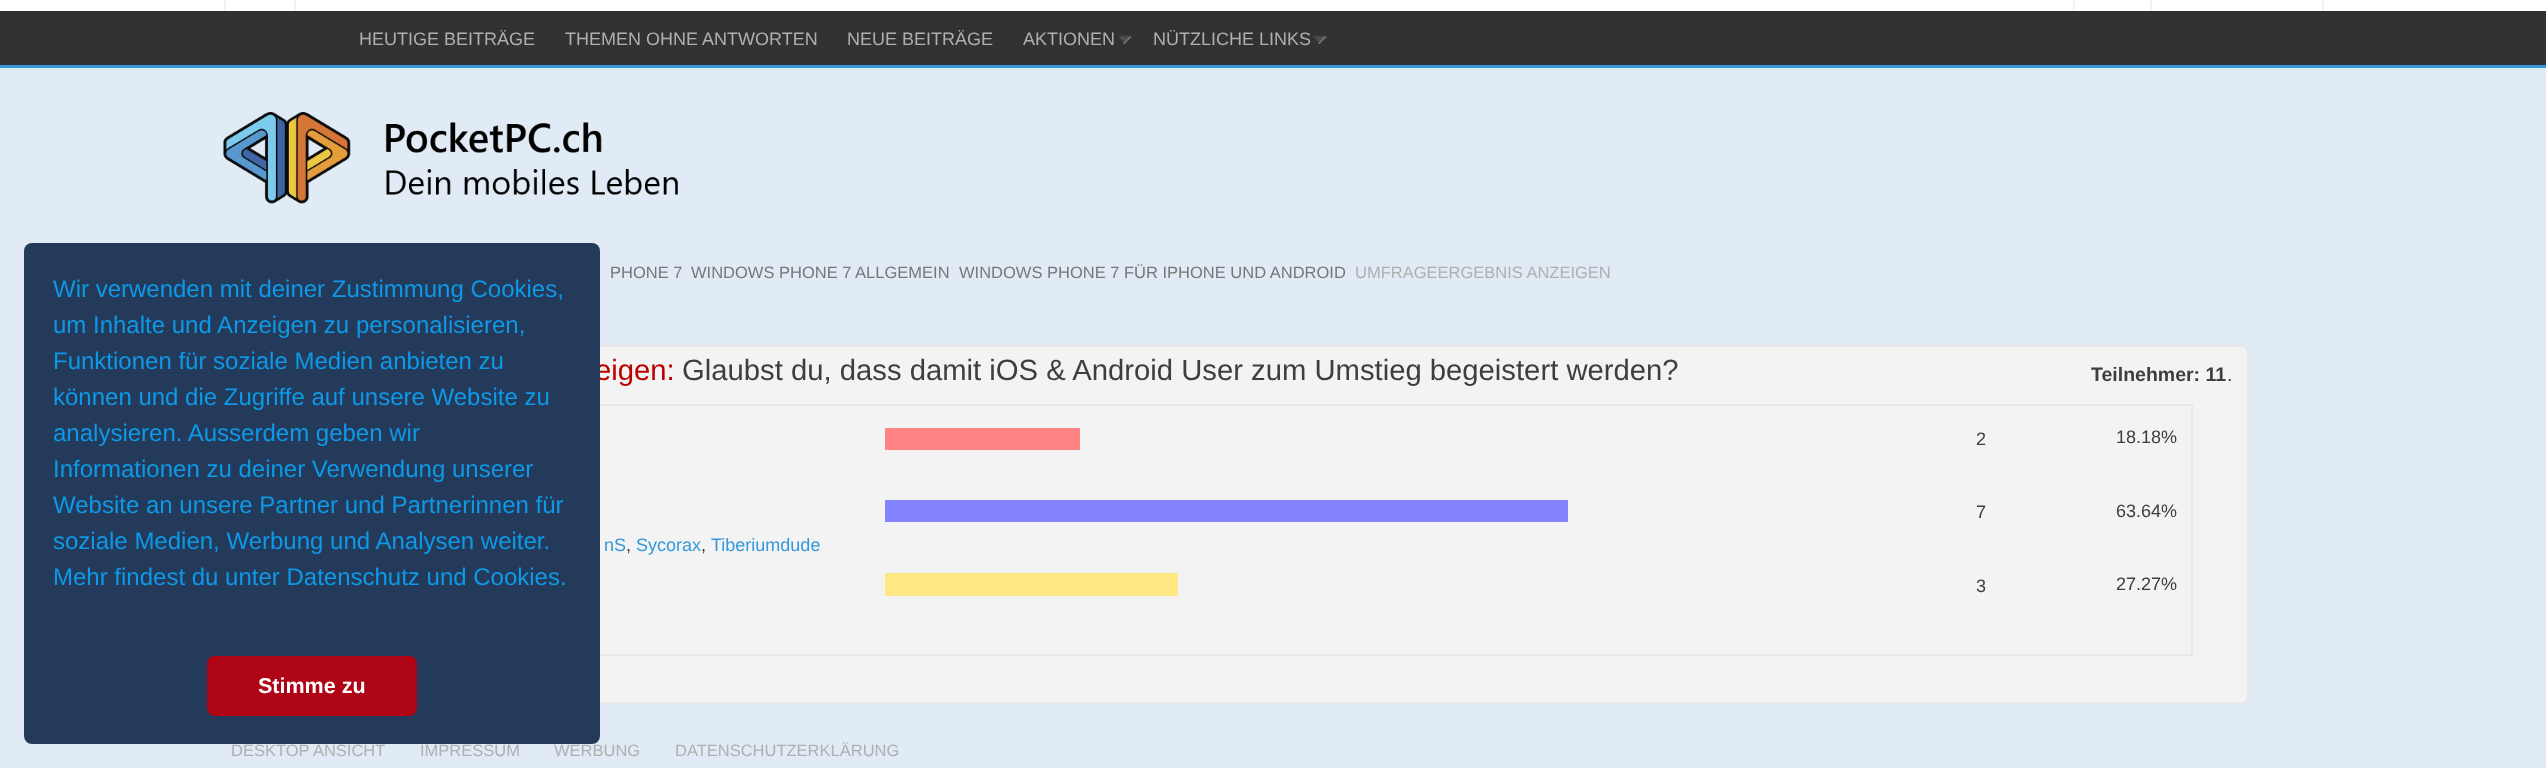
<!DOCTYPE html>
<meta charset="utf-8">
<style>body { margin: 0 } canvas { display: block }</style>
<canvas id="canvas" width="2546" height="768"></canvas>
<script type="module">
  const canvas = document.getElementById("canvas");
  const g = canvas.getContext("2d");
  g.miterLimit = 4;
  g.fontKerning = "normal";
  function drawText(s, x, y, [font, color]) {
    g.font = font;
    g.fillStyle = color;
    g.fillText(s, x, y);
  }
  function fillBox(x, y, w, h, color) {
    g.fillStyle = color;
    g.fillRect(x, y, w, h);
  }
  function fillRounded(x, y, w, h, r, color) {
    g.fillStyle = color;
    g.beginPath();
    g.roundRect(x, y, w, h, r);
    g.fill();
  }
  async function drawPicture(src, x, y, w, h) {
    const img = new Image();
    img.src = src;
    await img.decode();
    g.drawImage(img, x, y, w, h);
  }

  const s1 = ["18px Liberation Sans", "#AFAFAF"];
  const s2 = ["16.5px Liberation Sans", "#777777"];
  const s3 = ["16.5px Liberation Sans", "#AFAFAF"];
  const s4 = ["29.25px Liberation Sans", "#BB0000"];
  const s5 = ["29.25px Liberation Sans", "#3E3E3E"];
  const s6 = ["bold 19.5px Liberation Sans", "#3E3E3E"];
  const s7 = ["19.5px Liberation Sans", "#3E3E3E"];
  const s8 = ["18px Liberation Sans", "#3E3E3E"];
  const s9 = ["18px Liberation Sans", "#3498DB"];
  const s10 = ["24px Liberation Sans", "#0E99E6"];
  const s11 = ["bold 21.5px Liberation Sans", "#FFFFFF"];

  fillBox(0, 0, 2546, 768, "#E1EBF5");
  fillBox(0, 11, 2546, 54, "#313233");
  fillBox(0, 65, 2546, 3, "#3498DB");
  fillBox(0, 0, 2546, 11, "#FFFFFF");
  fillBox(2322, 0, 2, 11, "#F0F3F3");
  fillBox(2073, 0, 2, 11, "#F0F3F3");
  fillBox(2150, 0, 2, 11, "#F0F3F3");
  fillBox(294, 0, 2, 11, "#F0F3F3");
  fillBox(224, 0, 2, 11, "#F0F3F3");
  drawText("HEUTIGE BEITRÄGE", 359, 45, s1);
  drawText("THEMEN OHNE ANTWORTEN", 565, 45, s1);
  drawText("NEUE BEITRÄGE", 847, 45, s1);
  drawText("AKTIONEN", 1023, 45, s1);
  await drawPicture("pic1.png", 1118, 35, 14, 9);
  drawText("NÜTZLICHE LINKS", 1153, 45, s1);
  await drawPicture("pic2.png", 1313, 35, 14, 9);
  await drawPicture("pic3.png", 223, 112, 455, 92);
  drawText("PHONE 7", 610, 278, s2);
  drawText("WINDOWS PHONE 7 ALLGEMEIN", 691, 278, s2);
  drawText("WINDOWS PHONE 7 FÜR IPHONE UND ANDROID", 959, 278, s2);
  drawText("UMFRAGEERGEBNIS ANZEIGEN", 1355, 278, s3);
  g.fillStyle = "#F3F3F3";
  g.beginPath();
  g.roundRect(300, 346, 1948, 357, 7);
  g.fill();
  g.strokeStyle = "#E8E8E8";
  g.lineWidth = 2;
  g.stroke();
  drawText("eigen:", 595, 380, s4);
  drawText("Glaubst du, dass damit iOS & Android User zum Umstieg begeistert werden?", 682, 380, s5);
  drawText("Teilnehmer: 11", 2091, 381, s6);
  drawText(".", 2227, 381, s7);
  g.strokeRect(316, 405, 1876, 250);
  fillBox(885, 428, 195, 22, "#FF8484");
  drawText("2", 1976, 445, s8);
  drawText("18.18%", 2116, 443, s8);
  fillBox(885, 500, 683, 22, "#8484FF");
  drawText("7", 1976, 518, s8);
  drawText("63.64%", 2116, 517, s8);
  drawText("nS", 604, 551, s9);
  drawText(",", 626, 551, s8);
  drawText("Sycorax", 636, 551, s9);
  drawText(",", 701, 551, s8);
  drawText("Tiberiumdude", 711, 551, s9);
  fillBox(885, 573, 293, 23, "#FFE784");
  drawText("3", 1976, 592, s8);
  drawText("27.27%", 2116, 590, s8);
  drawText("DESKTOP ANSICHT", 231, 756, s3);
  drawText("IMPRESSUM", 420, 756, s3);
  drawText("WERBUNG", 554, 756, s3);
  drawText("DATENSCHUTZERKLÄRUNG", 675, 756, s3);
  fillRounded(24, 243, 576, 501, 8, "#233A5B");
  drawText("Wir verwenden mit deiner Zustimmung Cookies,", 53, 297, s10);
  drawText("um Inhalte und Anzeigen zu personalisieren,", 53, 333, s10);
  drawText("Funktionen für soziale Medien anbieten zu", 53, 369, s10);
  drawText("können und die Zugriffe auf unsere Website zu", 53, 405, s10);
  drawText("analysieren. Ausserdem geben wir", 53, 441, s10);
  drawText("Informationen zu deiner Verwendung unserer", 53, 477, s10);
  drawText("Website an unsere Partner und Partnerinnen für", 53, 513, s10);
  drawText("soziale Medien, Werbung und Analysen weiter.", 53, 549, s10);
  drawText("Mehr findest du unter Datenschutz und Cookies.", 53, 585, s10);
  fillRounded(207, 656, 210, 60, 8, "#AF0415");
  drawText("Stimme zu", 258, 693, s11);
</script>
